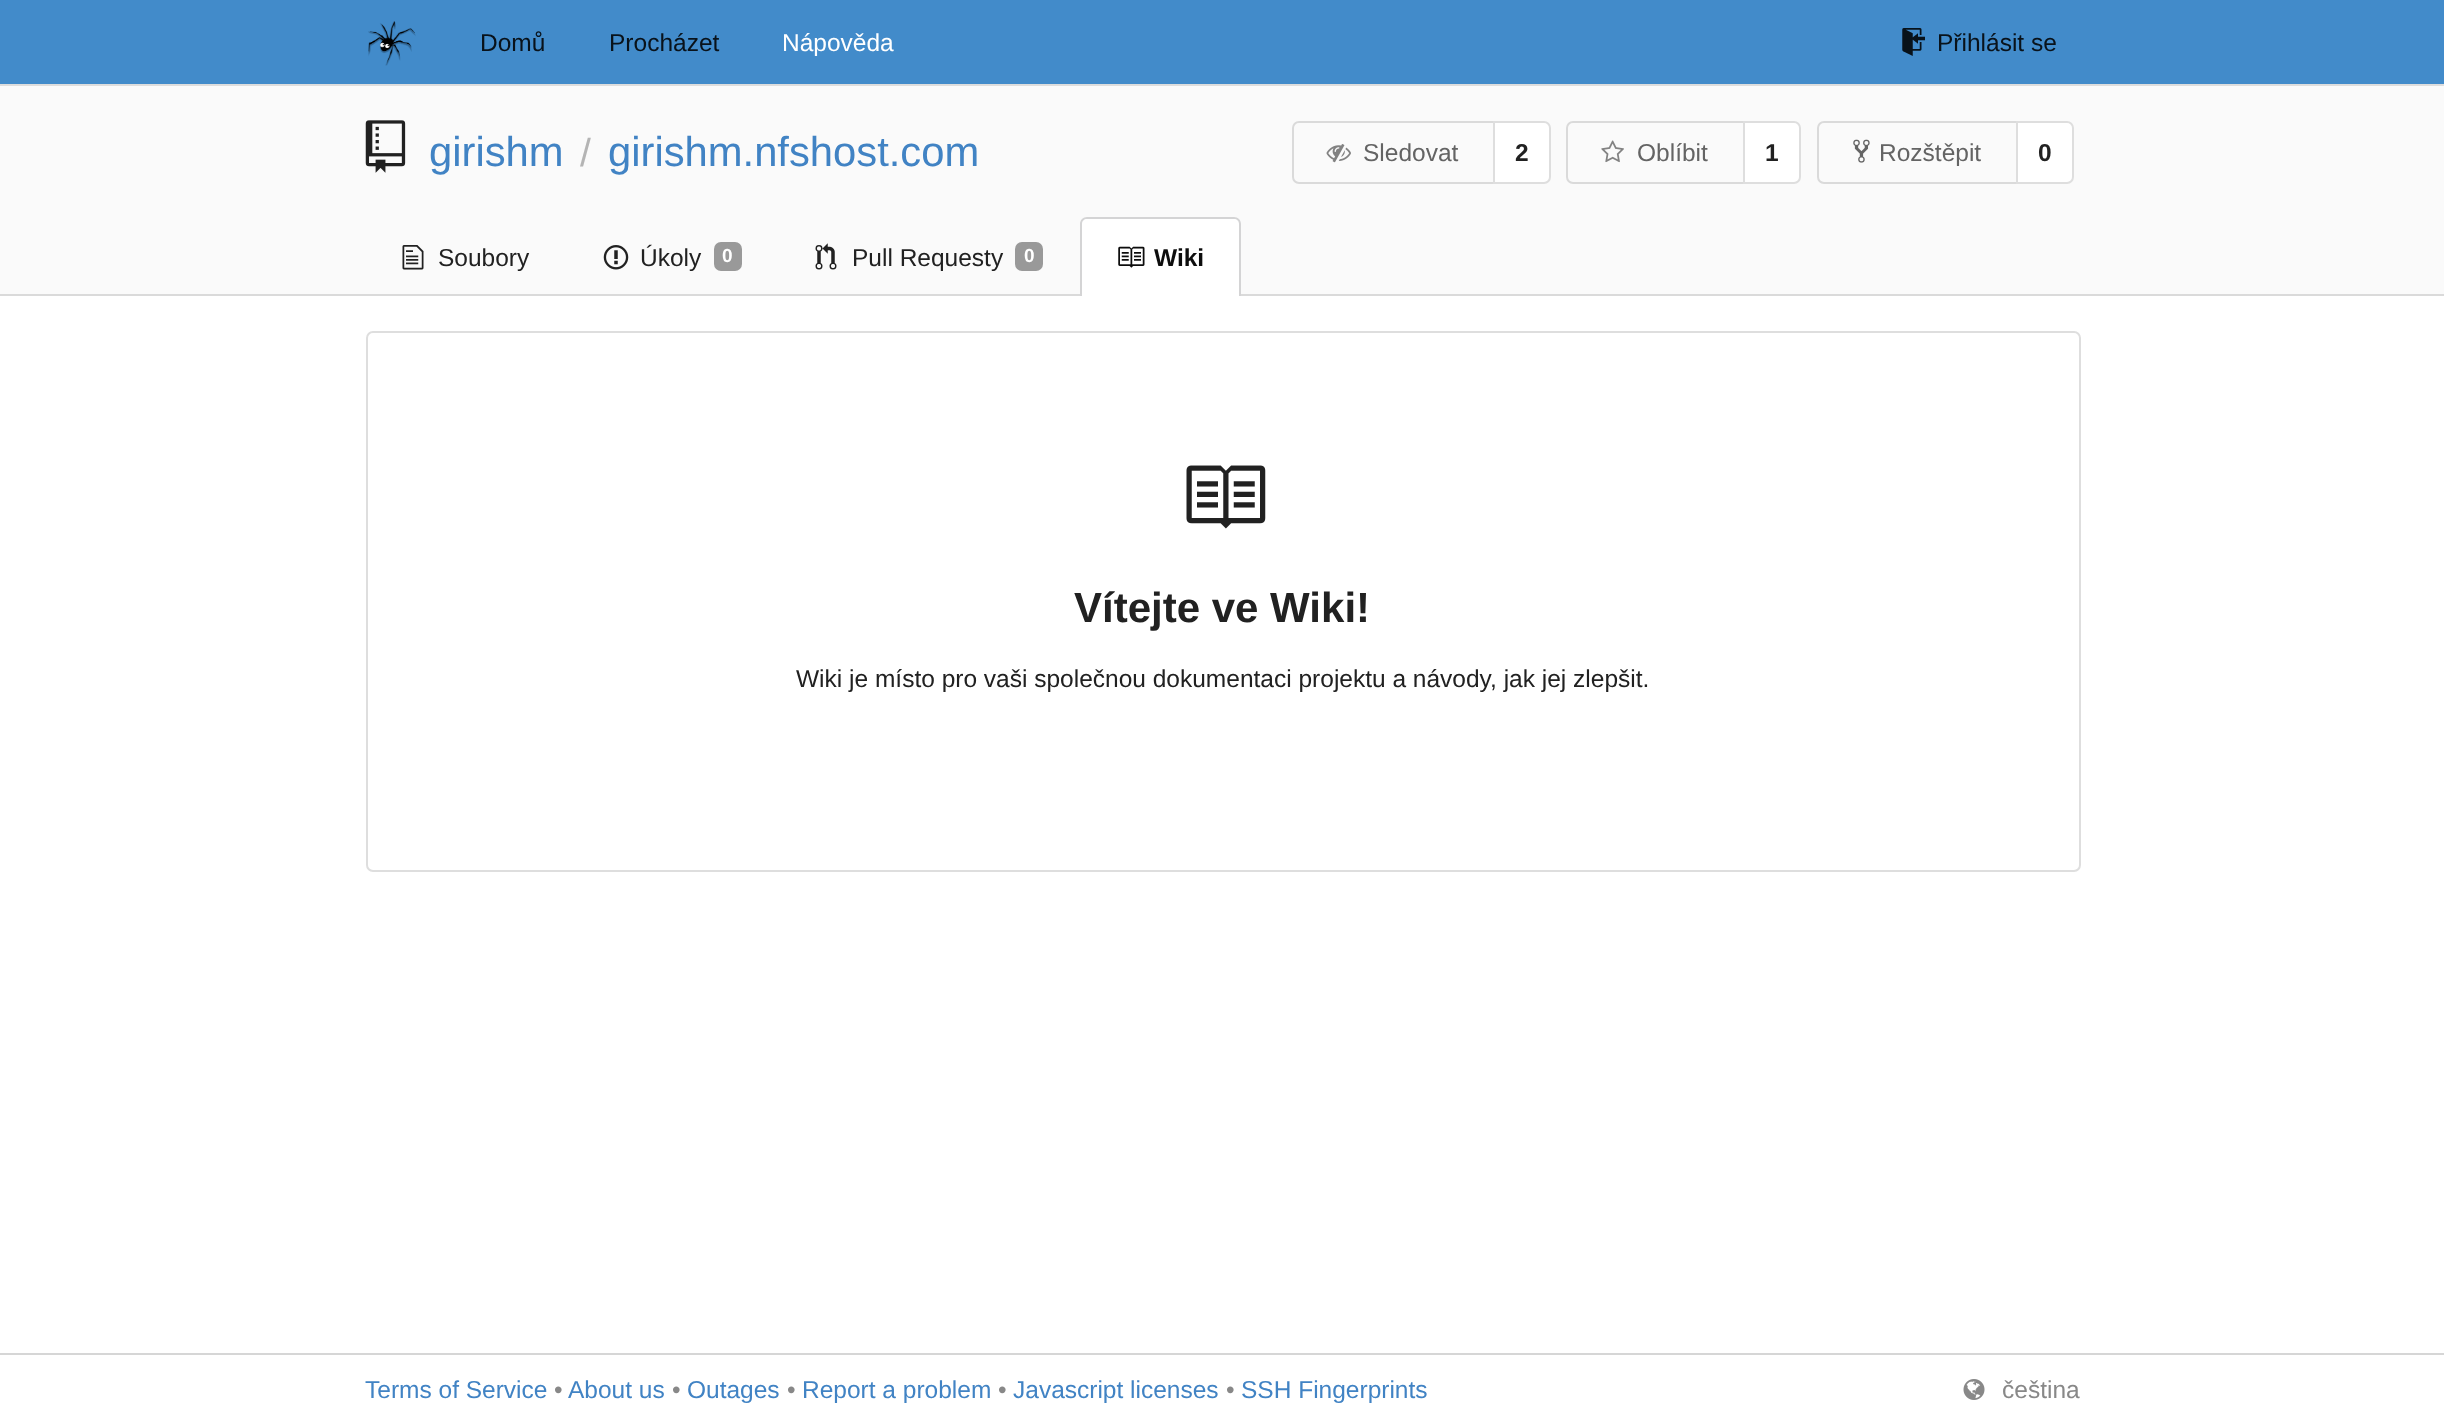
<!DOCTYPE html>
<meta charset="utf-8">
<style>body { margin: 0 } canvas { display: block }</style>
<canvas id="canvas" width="2444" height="1422"></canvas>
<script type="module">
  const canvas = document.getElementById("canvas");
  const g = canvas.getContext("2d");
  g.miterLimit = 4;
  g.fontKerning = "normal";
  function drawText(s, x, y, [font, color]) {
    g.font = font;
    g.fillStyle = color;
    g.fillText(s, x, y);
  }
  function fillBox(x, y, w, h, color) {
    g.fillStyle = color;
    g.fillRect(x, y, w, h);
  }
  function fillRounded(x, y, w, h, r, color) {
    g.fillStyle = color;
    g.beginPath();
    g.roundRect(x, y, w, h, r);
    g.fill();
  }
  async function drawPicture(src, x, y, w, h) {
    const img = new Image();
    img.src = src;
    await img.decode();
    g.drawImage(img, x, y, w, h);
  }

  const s1 = ["24.5px Liberation Sans", "#09121A"];
  const s2 = ["24.5px Liberation Sans", "#FFFFFF"];
  const s3 = ["41.75px Liberation Sans", "#4183C4"];
  const s4 = ["39px Liberation Sans", "#B4B4B4"];
  const s5 = ["24.5px Liberation Sans", "#646464"];
  const s6 = ["bold 24.5px Liberation Sans", "#212121"];
  const s7 = ["24.5px Liberation Sans", "#212121"];
  const s8 = ["bold 19px Liberation Sans", "#FFFFFF"];
  const s9 = ["bold 24.5px Liberation Sans", "#0D0D0D"];
  const s10 = ["bold 42px Liberation Sans", "#212121"];
  const s11 = ["24.5px Liberation Sans", "#4183C4"];
  const s12 = ["24.5px Liberation Sans", "#888888"];

  fillBox(0, 0, 2444, 1422, "#FFFFFF");
  fillBox(0, 0, 2444, 84, "#428BCA");
  fillBox(0, 84, 2444, 2, "#DDDDDD");
  await drawPicture("pic1.png", 368, 21, 48, 45);
  drawText("Domů", 480, 51, s1);
  drawText("Procházet", 609, 51, s1);
  drawText("Nápověda", 782, 51, s2);
  await drawPicture("pic2.png", 1902, 28, 23, 28);
  drawText("Přihlásit se", 1937, 51, s1);
  fillBox(0, 86, 2444, 208, "#FAFAFA");
  await drawPicture("pic3.png", 365, 120, 41, 53);
  drawText("girishm", 429, 166, s3);
  drawText("/", 580, 166, s4);
  drawText("girishm.nfshost.com", 608, 166, s3);
  g.beginPath();
  g.roundRect(1293, 122, 201, 61, [6, 0, 0, 6]);
  g.strokeStyle = "#DADADA";
  g.lineWidth = 2;
  g.stroke();
  await drawPicture("pic4.png", 1326, 144, 25, 19);
  drawText("Sledovat", 1363, 161, s5);
  g.fillStyle = "#FFFFFF";
  g.beginPath();
  g.roundRect(1494, 122, 56, 61, [0, 6, 6, 0]);
  g.fill();
  g.strokeStyle = "#DEDEDE";
  g.stroke();
  drawText("2", 1515, 161, s6);
  g.beginPath();
  g.roundRect(1567, 122, 177, 61, [6, 0, 0, 6]);
  g.strokeStyle = "#DADADA";
  g.stroke();
  await drawPicture("pic5.png", 1601, 140, 23, 23);
  drawText("Oblíbit", 1637, 161, s5);
  g.fillStyle = "#FFFFFF";
  g.beginPath();
  g.roundRect(1744, 122, 56, 61, [0, 6, 6, 0]);
  g.fill();
  g.strokeStyle = "#DEDEDE";
  g.stroke();
  drawText("1", 1765, 161, s6);
  g.beginPath();
  g.roundRect(1818, 122, 199, 61, [6, 0, 0, 6]);
  g.strokeStyle = "#DADADA";
  g.stroke();
  await drawPicture("pic6.png", 1853, 139, 17, 24);
  drawText("Rozštěpit", 1879, 161, s5);
  g.fillStyle = "#FFFFFF";
  g.beginPath();
  g.roundRect(2017, 122, 56, 61, [0, 6, 6, 0]);
  g.fill();
  g.strokeStyle = "#DEDEDE";
  g.stroke();
  drawText("0", 2038, 161, s6);
  await drawPicture("pic7.png", 402, 245, 22, 25);
  drawText("Soubory", 438, 266, s7);
  await drawPicture("pic8.png", 603, 245, 26, 25);
  drawText("Úkoly", 640, 266, s7);
  fillRounded(714, 242, 28, 29, 7, "#999999");
  drawText("0", 722, 262, s8);
  await drawPicture("pic9.png", 815, 243, 22, 27);
  drawText("Pull Requesty", 852, 266, s7);
  fillRounded(1015, 242, 28, 29, 7, "#999999");
  drawText("0", 1024, 262, s8);
  fillBox(0, 294, 2444, 2, "#DADADA");
  g.fillStyle = "#FFFFFF";
  g.beginPath();
  g.roundRect(1080, 217, 161, 79, [7, 7, 0, 0]);
  g.fill();
  g.fillStyle = "#D4D4D5";
  g.beginPath();
  g.moveTo(1087, 217);
  g.lineTo(1234, 217);
  g.bezierCurveTo(1238, 217, 1241, 220, 1241, 224);
  g.lineTo(1241, 296);
  g.lineTo(1080, 296);
  g.lineTo(1080, 224);
  g.bezierCurveTo(1080, 220, 1083, 217, 1087, 217);
  g.closePath();
  g.moveTo(1087, 219);
  g.lineTo(1234, 219);
  g.bezierCurveTo(1237, 219, 1239, 221, 1239, 224);
  g.lineTo(1239, 296);
  g.lineTo(1082, 296);
  g.lineTo(1082, 224);
  g.bezierCurveTo(1082, 221, 1084, 219, 1087, 219);
  g.closePath();
  g.fill("evenodd");
  await drawPicture("pic10.png", 1118, 246, 27, 22);
  drawText("Wiki", 1154, 266, s9);
  g.beginPath();
  g.roundRect(367, 332, 1713, 539, 6);
  g.stroke();
  await drawPicture("pic11.png", 1186, 465, 80, 64);
  drawText("Vítejte ve Wiki!", 1074, 622, s10);
  drawText("Wiki je místo pro vaši společnou dokumentaci projektu a návody, jak jej zlepšit.", 796, 687, s7);
  fillBox(0, 1353, 2444, 2, "#D6D6D6");
  drawText("Terms of Service", 365, 1398, s11);
  drawText("•", 554, 1398, s12);
  drawText("About us", 568, 1398, s11);
  drawText("•", 672, 1398, s12);
  drawText("Outages", 687, 1398, s11);
  drawText("•", 787, 1398, s12);
  drawText("Report a problem", 802, 1398, s11);
  drawText("•", 998, 1398, s12);
  drawText("Javascript licenses", 1013, 1398, s11);
  drawText("•", 1226, 1398, s12);
  drawText("SSH Fingerprints", 1241, 1398, s11);
  await drawPicture("pic12.png", 1963, 1379, 22, 21);
  drawText("čeština", 2002, 1398, s12);
</script>
